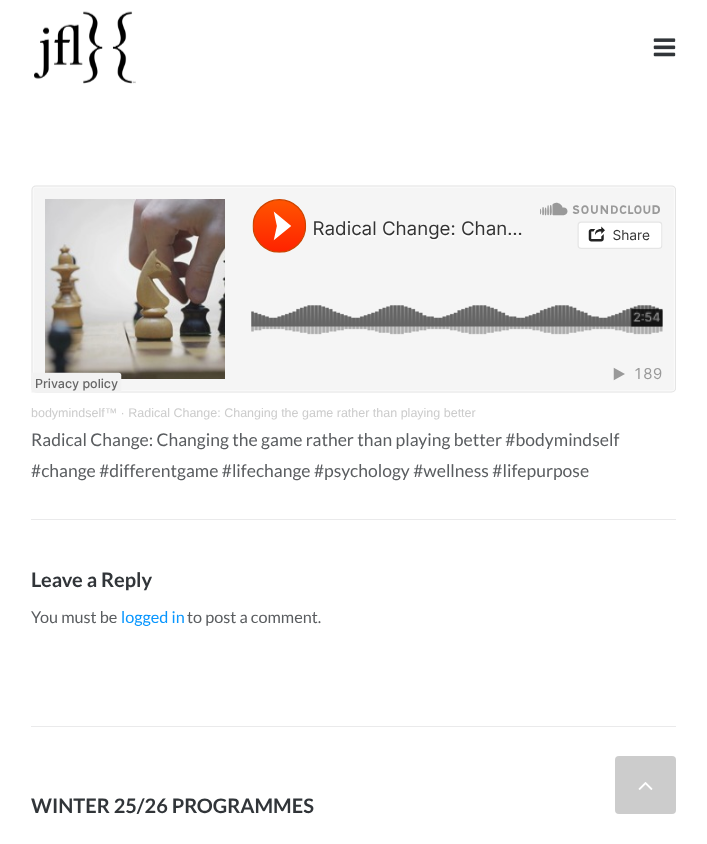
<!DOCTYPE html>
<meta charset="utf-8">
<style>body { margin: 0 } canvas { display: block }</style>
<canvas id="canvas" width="707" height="844"></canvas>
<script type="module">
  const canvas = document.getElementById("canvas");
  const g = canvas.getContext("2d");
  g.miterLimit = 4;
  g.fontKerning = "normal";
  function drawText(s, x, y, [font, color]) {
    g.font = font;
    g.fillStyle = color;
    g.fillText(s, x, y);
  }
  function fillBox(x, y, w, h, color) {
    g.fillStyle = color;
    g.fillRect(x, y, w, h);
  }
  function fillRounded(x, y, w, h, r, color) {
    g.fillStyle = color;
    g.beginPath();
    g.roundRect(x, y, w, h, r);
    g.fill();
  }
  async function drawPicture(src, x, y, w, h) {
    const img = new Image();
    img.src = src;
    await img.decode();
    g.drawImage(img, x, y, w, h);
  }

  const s1 = ["12.5px Liberation Sans", "#CCCCCC"];
  const s2 = ["17.5px Lato", "#5A5D60"];
  const s3 = ["bold 20px Lato", "#313539"];
  const s4 = ["16.25px Lato", "#5A5D60"];
  const s5 = ["16.25px Lato", "#0896FE"];

  fillBox(0, 0, 707, 844, "#FFFFFF");
  await drawPicture("pic1.png", 34, 11, 102, 73);
  await drawPicture("pic2.png", 653, 38, 23, 19);
  await drawPicture("pic3.png", 31, 185, 645, 208);
  drawText("bodymindself™ · Radical Change: Changing the game rather than playing better", 31, 417, s1);
  drawText("Radical Change: Changing the game rather than playing better #bodymindself", 31, 446, s2);
  drawText("#change #differentgame #lifechange #psychology #wellness #lifepurpose", 31, 477, s2);
  fillBox(31, 519, 645, 1, "#EAEAEB");
  drawText("Leave a Reply", 31, 587, s3);
  drawText("You must be", 31, 623, s4);
  drawText("logged in", 121, 623, s5);
  drawText("to post a comment.", 187, 623, s4);
  fillBox(31, 726, 645, 1, "#EAEAEB");
  drawText("WINTER 25/26 PROGRAMMES", 31, 813, s3);
  fillRounded(615, 756, 61, 58, 4, "#CCCCCC");
  await drawPicture("pic4.png", 638, 782, 15, 8);
</script>
